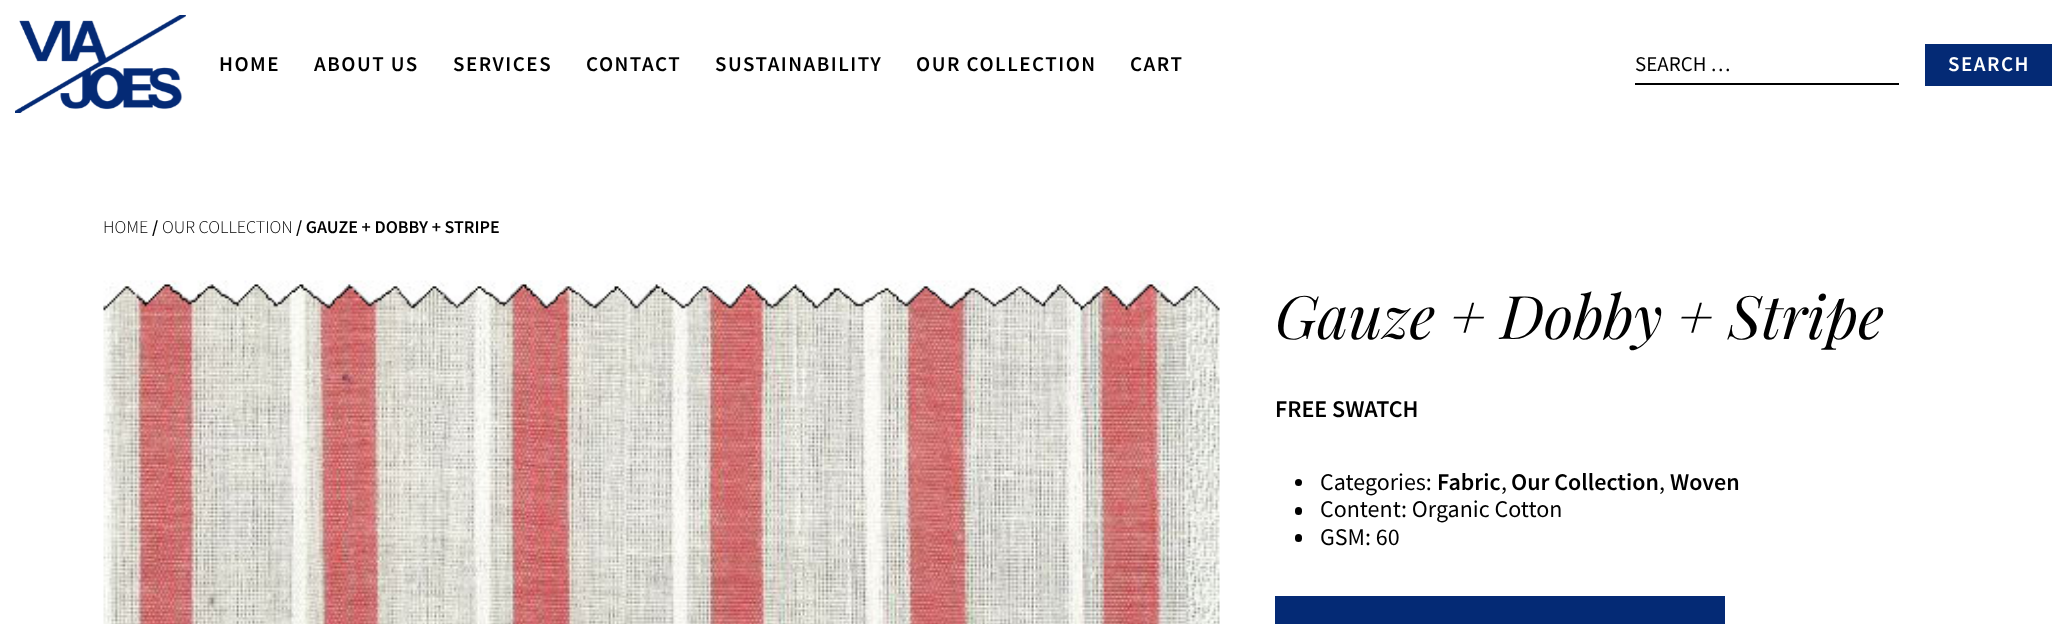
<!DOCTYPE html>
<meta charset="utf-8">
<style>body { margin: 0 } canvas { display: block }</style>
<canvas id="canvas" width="2067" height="624"></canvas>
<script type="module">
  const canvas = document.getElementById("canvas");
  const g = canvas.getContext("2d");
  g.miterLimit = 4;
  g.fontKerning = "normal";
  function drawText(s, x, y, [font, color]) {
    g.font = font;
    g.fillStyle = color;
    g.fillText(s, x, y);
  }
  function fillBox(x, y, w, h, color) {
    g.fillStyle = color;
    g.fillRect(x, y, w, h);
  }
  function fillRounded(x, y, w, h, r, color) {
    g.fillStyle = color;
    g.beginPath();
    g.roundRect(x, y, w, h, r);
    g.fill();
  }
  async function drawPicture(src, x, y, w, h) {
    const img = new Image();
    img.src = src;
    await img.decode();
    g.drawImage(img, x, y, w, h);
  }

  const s1 = ["600 21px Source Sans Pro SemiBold", "#000000"];
  const s2 = ["21px Source Sans Pro", "#000000"];
  const s3 = ["600 21px Source Sans Pro SemiBold", "#FFFFFF"];
  const s4 = ["300 18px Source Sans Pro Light", "#000000"];
  const s5 = ["600 18px Source Sans Pro SemiBold", "#000000"];
  const s6 = ["italic 60px Playfair Display", "#000000"];
  const s7 = ["600 24px Source Sans Pro SemiBold", "#000000"];
  const s8 = ["24px Source Sans Pro", "#000000"];

  fillBox(0, 0, 2067, 624, "#FFFFFF");
  await drawPicture("pic1.png", 15, 15, 171, 98);
  g.letterSpacing = "1.5px";
  drawText("HOME", 219, 71, s1);
  drawText("ABOUT US", 314, 71, s1);
  drawText("SERVICES", 453, 71, s1);
  drawText("CONTACT", 586, 71, s1);
  drawText("SUSTAINABILITY", 715, 71, s1);
  drawText("OUR COLLECTION", 916, 71, s1);
  drawText("CART", 1130, 71, s1);
  fillBox(1635, 83, 264, 2, "#000000");
  g.letterSpacing = "0px";
  drawText("SEARCH …", 1635, 71, s2);
  fillBox(1925, 44, 127, 42, "#042A75");
  g.letterSpacing = "1.5px";
  drawText("SEARCH", 1948, 71, s3);
  g.letterSpacing = "0px";
  drawText("HOME", 103, 233, s4);
  drawText("/", 152, 233, s5);
  drawText("OUR COLLECTION", 162, 233, s4);
  drawText("/ GAUZE + DOBBY + STRIPE", 296, 233, s5);
  await drawPicture("pic2.png", 103, 280, 1117, 344);
  drawText("Gauze + Dobby + Stripe", 1275, 339, s6);
  drawText("FREE SWATCH", 1275, 417, s7);
  g.beginPath();
  g.arc(1298.5, 482.5, 3.5, 0, Math.PI * 2);
  g.fill();
  drawText("Categories:", 1320, 490, s8);
  drawText("Fabric", 1437, 490, s7);
  drawText("Our Collection", 1511, 490, s7);
  drawText("Woven", 1670, 490, s7);
  drawText(",", 1501, 490, s8);
  drawText(",", 1659, 490, s8);
  fillRounded(1295, 507, 7, 8, 3.5, "#000000");
  drawText("Content: Organic Cotton", 1320, 517, s8);
  fillRounded(1295, 534, 7, 8, 3.5, "#000000");
  drawText("GSM: 60", 1320, 545, s8);
  fillBox(1275, 596, 450, 28, "#042A75");
</script>
